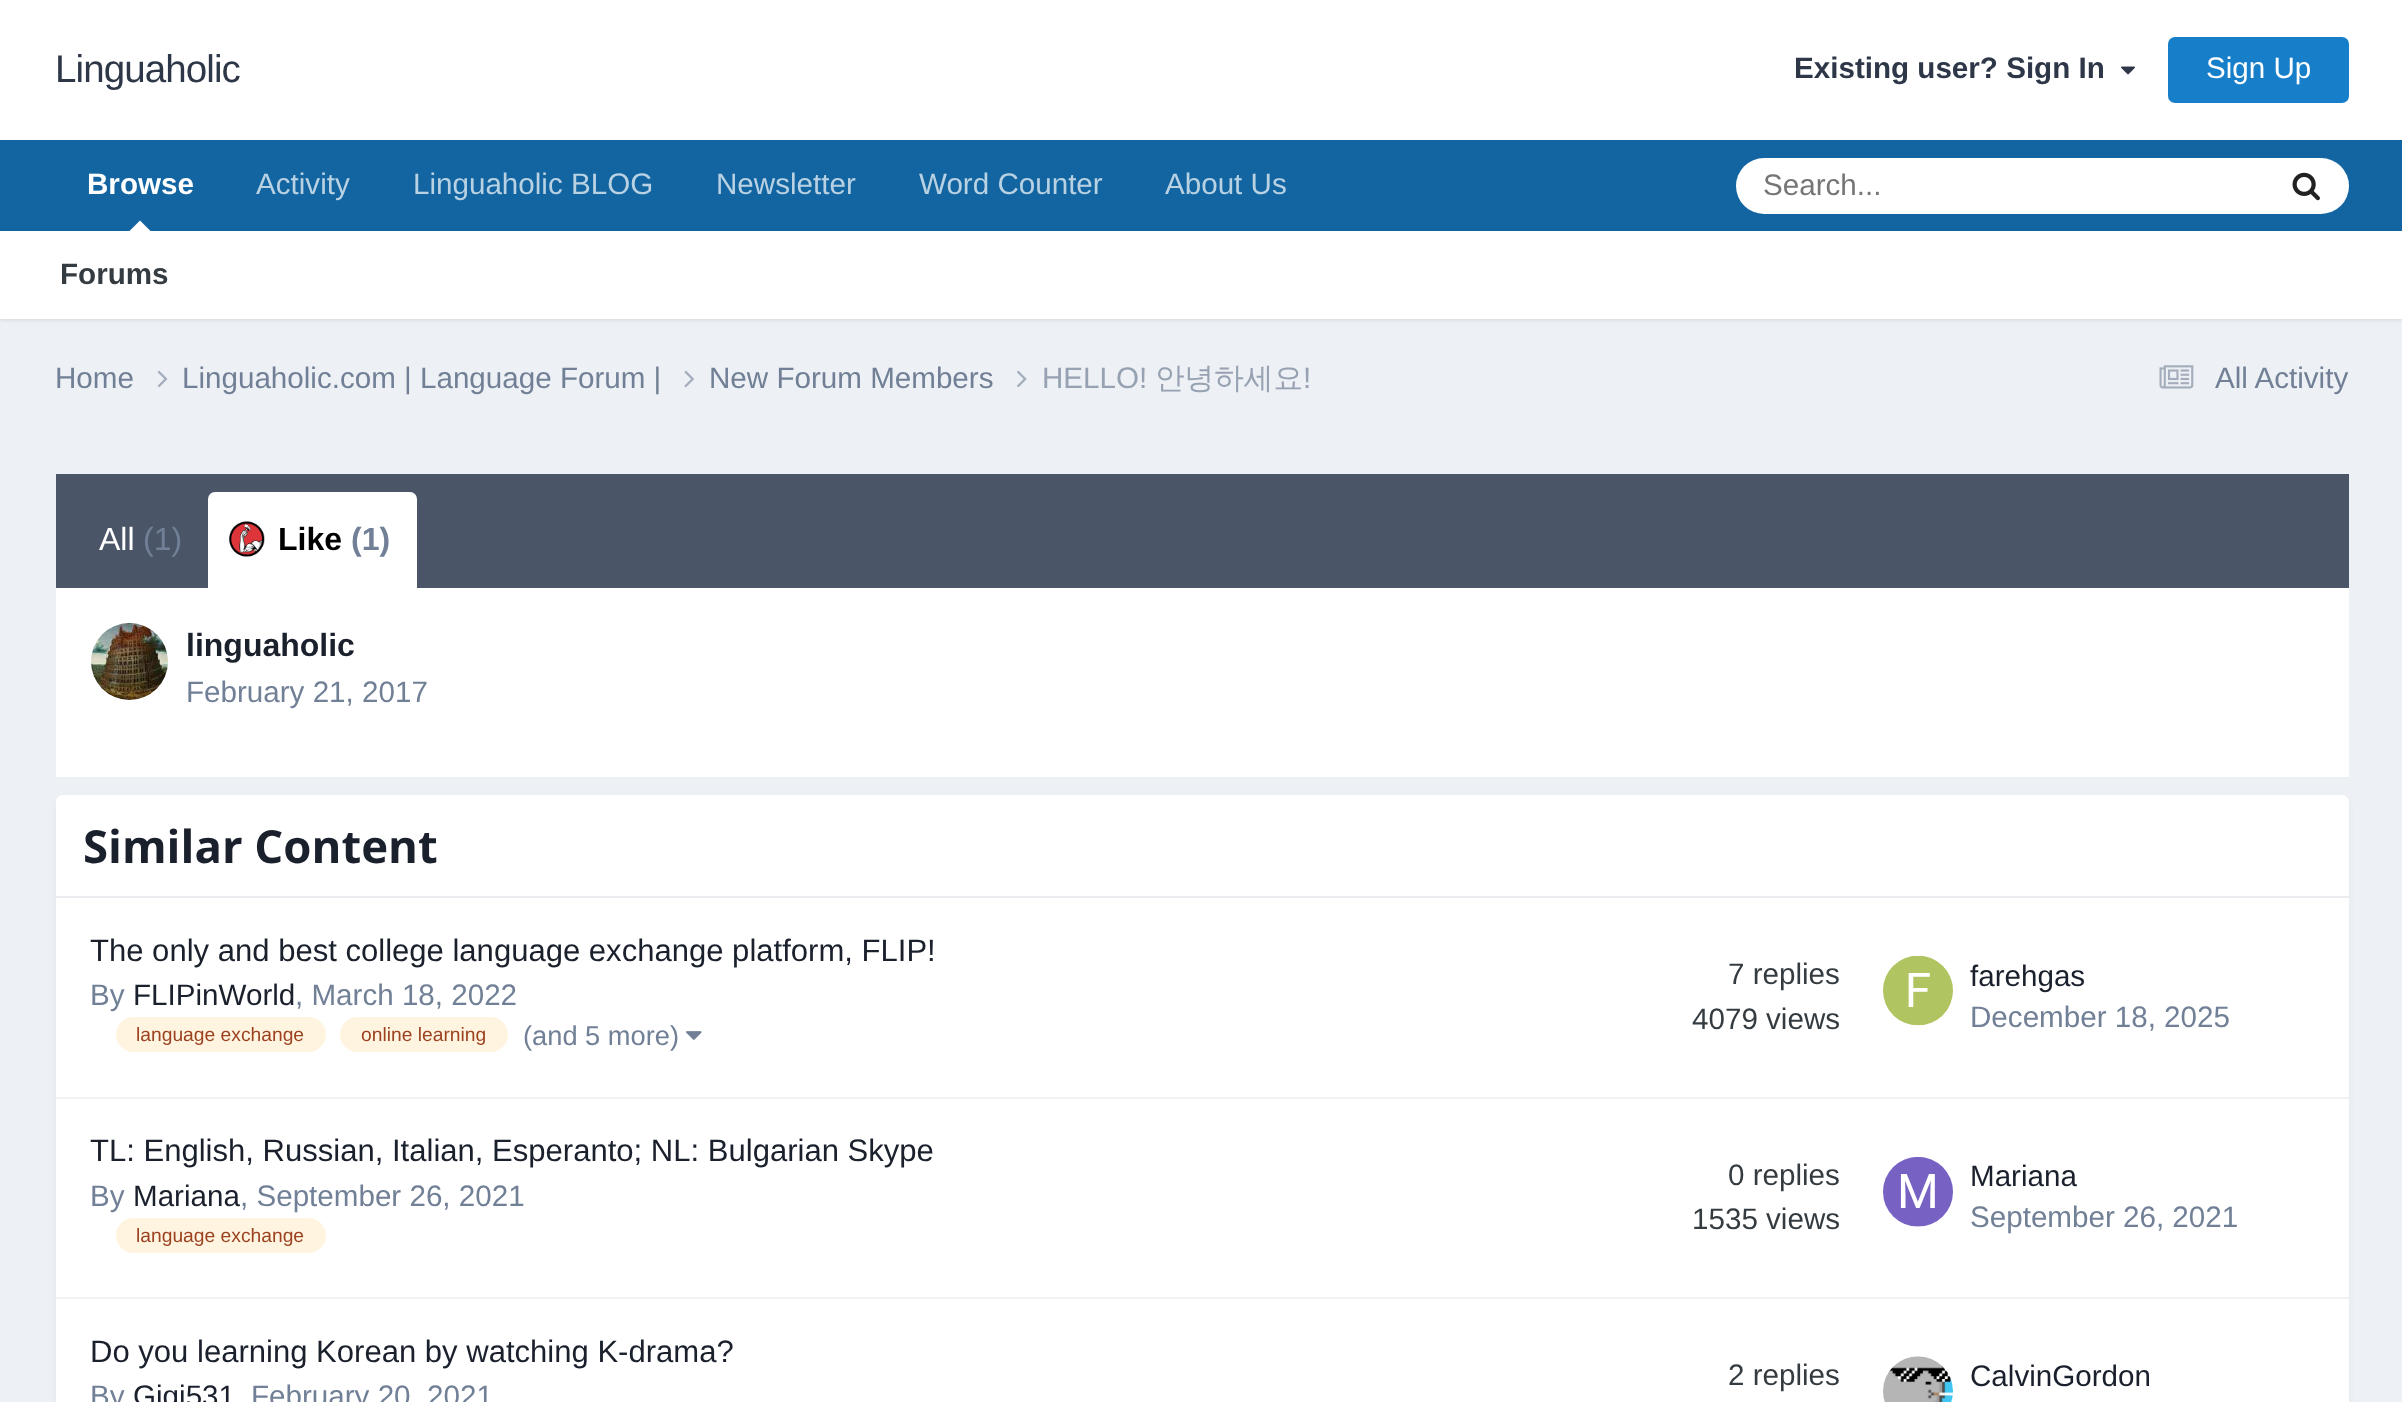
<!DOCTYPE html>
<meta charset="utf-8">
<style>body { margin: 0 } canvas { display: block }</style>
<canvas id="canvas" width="2402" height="1402"></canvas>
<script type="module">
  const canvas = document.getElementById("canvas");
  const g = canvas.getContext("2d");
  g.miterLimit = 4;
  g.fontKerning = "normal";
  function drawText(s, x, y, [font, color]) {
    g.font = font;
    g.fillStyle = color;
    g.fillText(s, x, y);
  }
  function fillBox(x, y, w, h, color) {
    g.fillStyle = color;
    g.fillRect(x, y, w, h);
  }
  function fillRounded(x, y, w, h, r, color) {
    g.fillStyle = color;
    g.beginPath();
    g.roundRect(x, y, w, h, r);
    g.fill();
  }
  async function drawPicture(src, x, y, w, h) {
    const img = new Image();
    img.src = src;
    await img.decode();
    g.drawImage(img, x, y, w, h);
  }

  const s1 = ["38.5px Liberation Sans", "#2D3748"];
  const s2 = ["bold 29.6px Liberation Sans", "#2D3748"];
  const s3 = ["29.6px Liberation Sans", "#FFFFFF"];
  const s4 = ["bold 29.6px Liberation Sans", "#FFFFFF"];
  const s5 = ["bold 29.6px Liberation Sans", "#353C41"];
  const s6 = ["29.6px Liberation Sans", "#B8D1E3"];
  const s7 = ["29.6px Liberation Sans", "#757575"];
  const s8 = ["29.6px Liberation Sans", "#718096"];
  const s9 = ["29.6px Liberation Sans", "#96A2B2"];
  const s10 = ["500 29.6px WenQuanYi Zen Hei", "#96A2B2"];
  const s11 = ["32px Liberation Sans", "#FFFFFF"];
  const s12 = ["32px Liberation Sans", "#718096"];
  const s13 = ["bold 32px Liberation Sans", "#000000"];
  const s14 = ["bold 32px Liberation Sans", "#718096"];
  const s15 = ["bold 32px Liberation Sans", "#1A202C"];
  const s16 = ["bold 45.5px Open Sans", "#1A202C"];
  const s17 = ["31.05px Liberation Sans", "#1A202C"];
  const s18 = ["29.6px Liberation Sans", "#1A202C"];
  const s19 = ["19.25px Liberation Sans", "#9C4221"];
  const s20 = ["27.25px Liberation Sans", "#718096"];
  const s21 = ["29.6px Liberation Sans", "#353C41"];

  fillBox(0, 0, 2402, 1402, "#EDF0F4");
  fillBox(0, 0, 2402, 140, "#FFFFFF");
  g.letterSpacing = "-0.9px";
  drawText("Linguaholic", 55, 82, s1);
  g.letterSpacing = "0px";
  drawText("Existing user? Sign In", 1794, 78, s2);
  await drawPicture("pic1.png", 2121, 66, 14, 9);
  fillRounded(2168, 37, 181, 66, 7, "#177EC9");
  drawText("Sign Up", 2206, 78, s3);
  fillBox(0, 140, 2402, 91, "#1265A1");
  drawText("Browse", 87, 194, s4);
  g.fillStyle = "rgba(0, 0, 0, 0.1)";
  g.filter = "blur(2px)";
  g.beginPath();
  g.rect(0, 233, 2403, 87);
  g.fill();
  g.filter = "none";
  g.fillStyle = "#FFFFFF";
  g.beginPath();
  g.moveTo(150.5, 231);
  g.lineTo(129.5, 231);
  g.lineTo(140, 220.5);
  g.closePath();
  g.fill();
  fillBox(0, 231, 2402, 88, "#FFFFFF");
  drawText("Forums", 60, 284, s5);
  drawText("Activity", 256, 194, s6);
  drawText("Linguaholic BLOG", 413, 194, s6);
  drawText("Newsletter", 716, 194, s6);
  drawText("Word Counter", 919, 194, s6);
  drawText("About Us", 1165, 194, s6);
  fillRounded(1736, 158, 613, 56, 28, "#FFFFFF");
  drawText("Search...", 1763, 195, s7);
  await drawPicture("pic2.png", 2292, 172, 28, 29);
  drawText("Home", 55, 388, s8);
  await drawPicture("pic3.png", 157, 370, 11, 18);
  drawText("Linguaholic.com | Language Forum |", 182, 388, s8);
  await drawPicture("pic4.png", 684, 370, 10, 18);
  drawText("New Forum Members", 709, 388, s8);
  await drawPicture("pic5.png", 1017, 370, 10, 18);
  drawText("HELLO!", 1042, 388, s9);
  drawText("안녕하세요", 1155, 388, s10);
  drawText("!", 1303, 388, s9);
  await drawPicture("pic6.png", 2159, 365, 35, 24);
  drawText("All Activity", 2215, 388, s8);
  fillBox(56, 474, 2293, 114, "#4A5568");
  drawText("All", 99, 550, s11);
  drawText("(1)", 143, 550, s12);
  g.fillStyle = "#FFFFFF";
  g.beginPath();
  g.roundRect(208, 492, 209, 96, [7, 7, 0, 0]);
  g.fill();
  await drawPicture("pic7.png", 229, 521, 36, 36);
  drawText("Like", 278, 550, s13);
  drawText("(1)", 351, 550, s14);
  fillBox(56, 588, 2293, 189, "#FFFFFF");
  await drawPicture("pic8.png", 91, 623, 77, 77);
  drawText("linguaholic", 186, 656, s15);
  drawText("February 21, 2017", 186, 702, s8);
  g.fillStyle = "rgba(45, 55, 72, 0.1)";
  g.filter = "blur(3.5px)";
  g.beginPath();
  g.roundRect(58, 800, 2289, 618, 5);
  g.fill();
  g.filter = "none";
  fillRounded(56, 795, 2293, 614, 7, "#FFFFFF");
  g.beginPath();
  g.roundRect(56, 795, 2293, 103, [7, 7, 0, 0]);
  g.fill();
  fillBox(56, 896, 2293, 2, "#EAECEF");
  drawText("Similar Content", 83, 863, s16);
  fillBox(56, 1097, 2293, 2, "#F1F2F5");
  drawText("The only and best college language exchange platform, FLIP!", 90, 961, s17);
  drawText("By", 90, 1005, s8);
  drawText("FLIPinWorld", 133, 1005, s18);
  drawText(", March 18, 2022", 295, 1005, s8);
  fillRounded(116, 1017, 210, 35, 17.5, "#FFF4DF");
  drawText("language exchange", 136, 1041, s19);
  fillRounded(340, 1017, 168, 35, 17.5, "#FFF4DF");
  drawText("online learning", 361, 1041, s19);
  drawText("(and 5 more)", 523, 1045, s20);
  await drawPicture("pic9.png", 686, 1031, 16, 9);
  drawText("7 replies", 1728, 984, s21);
  drawText("4079 views", 1692, 1029, s21);
  await drawPicture("pic10.png", 1883, 956, 70, 70);
  drawText("farehgas", 1970, 986, s18);
  drawText("December 18, 2025", 1970, 1027, s8);
  fillBox(56, 1297, 2293, 2, "#F1F2F5");
  drawText("TL: English, Russian, Italian, Esperanto; NL: Bulgarian Skype", 90, 1161, s17);
  drawText("By", 90, 1206, s8);
  drawText("Mariana", 133, 1206, s18);
  drawText(", September 26, 2021", 240, 1206, s8);
  fillRounded(116, 1218, 210, 35, 17.5, "#FFF4DF");
  drawText("language exchange", 136, 1242, s19);
  drawText("0 replies", 1728, 1185, s21);
  drawText("1535 views", 1692, 1229, s21);
  await drawPicture("pic11.png", 1883, 1157, 70, 70);
  drawText("Mariana", 1970, 1186, s18);
  drawText("September 26, 2021", 1970, 1227, s8);
  drawText("Do you learning Korean by watching K-drama?", 90, 1362, s17);
  drawText("By", 90, 1406, s8);
  drawText("Gigi531", 133, 1406, s18);
  drawText("February 20, 2021", 251, 1406, s8);
  drawText("2 replies", 1728, 1385, s21);
  await drawPicture("pic12.png", 1883, 1356, 70, 46);
  drawText("CalvinGordon", 1970, 1386, s18);
</script>
